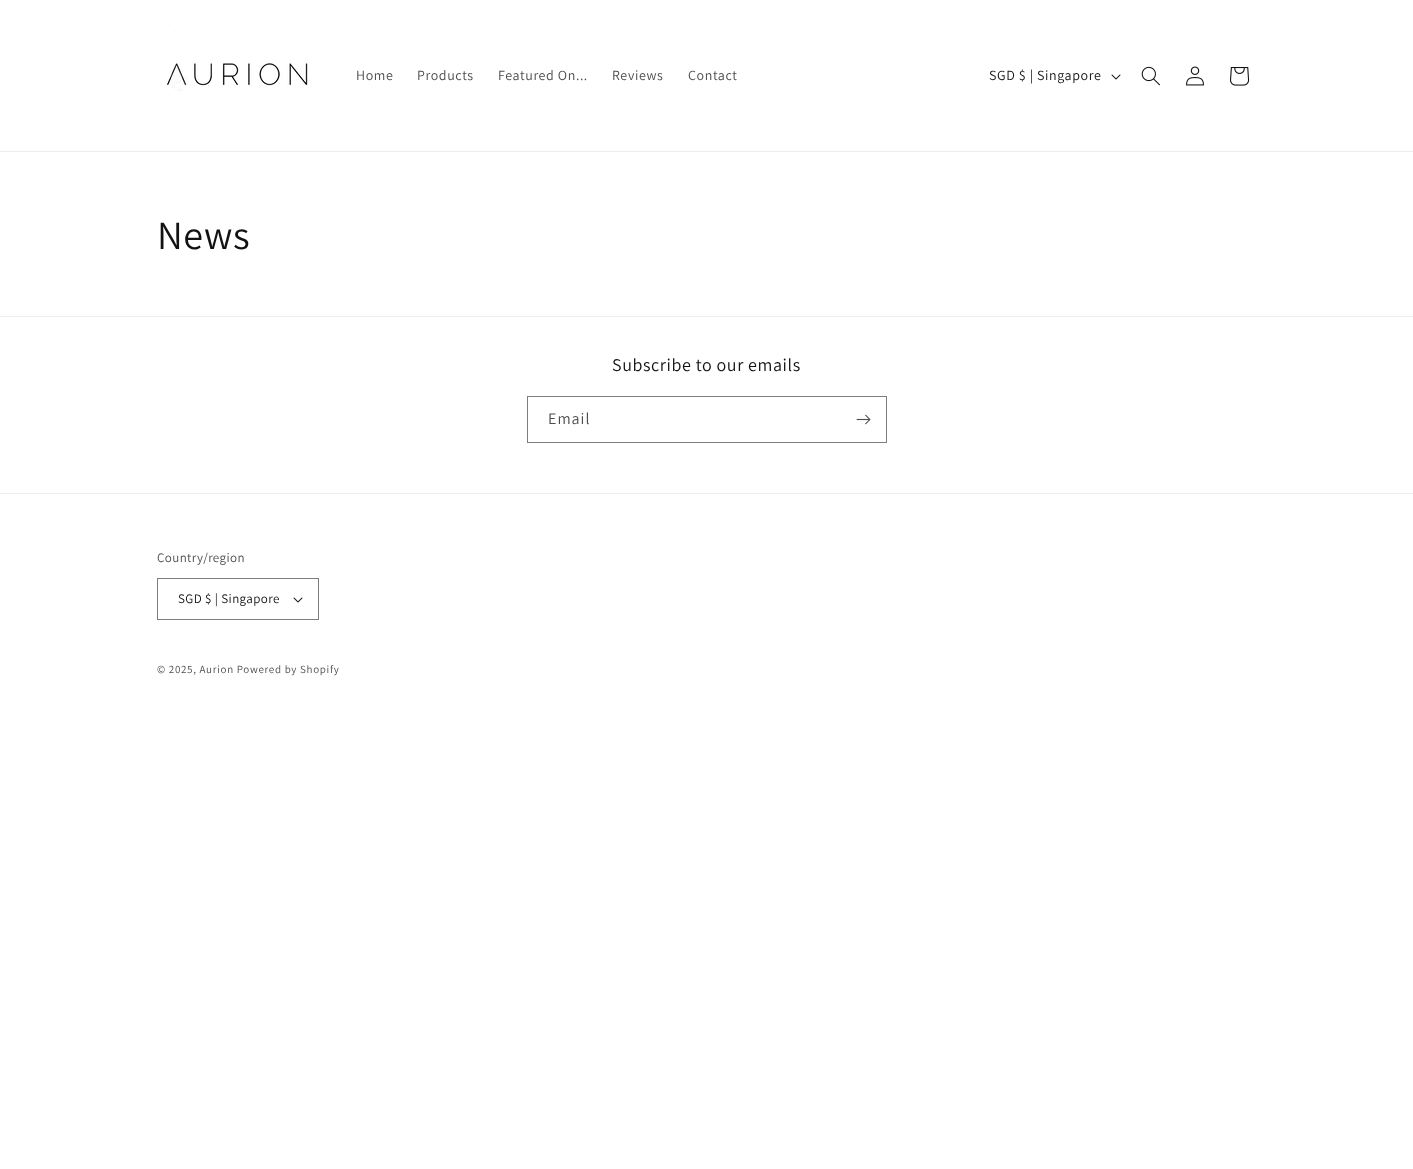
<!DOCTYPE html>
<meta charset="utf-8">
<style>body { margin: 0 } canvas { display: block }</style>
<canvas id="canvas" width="1413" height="1169"></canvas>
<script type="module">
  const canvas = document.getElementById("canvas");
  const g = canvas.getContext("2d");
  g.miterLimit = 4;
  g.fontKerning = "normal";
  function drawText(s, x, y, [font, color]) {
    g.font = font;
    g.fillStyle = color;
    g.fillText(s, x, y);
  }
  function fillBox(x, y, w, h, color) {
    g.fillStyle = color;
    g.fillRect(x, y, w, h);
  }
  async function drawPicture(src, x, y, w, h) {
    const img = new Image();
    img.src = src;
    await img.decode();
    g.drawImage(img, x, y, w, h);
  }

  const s1 = ["14px Assistant", "#4D4D4D"];
  const s2 = ["14px Assistant", "#121212"];
  const s3 = ["40px Assistant", "#121212"];
  const s4 = ["18px Assistant", "#121212"];
  const s5 = ["16px Assistant", "#4D4D4D"];
  const s6 = ["13px Assistant", "#4D4D4D"];
  const s7 = ["13px Assistant", "#121212"];
  const s8 = ["11px Assistant", "#4D4D4D"];

  fillBox(0, 0, 1413, 1169, "#FFFFFF");
  fillBox(0, 151, 1413, 1, "#ECECEC");
  await drawPicture("pic1.png", 167, 30, 141, 62);
  g.letterSpacing = "0.6px";
  drawText("Home", 356, 80, s1);
  drawText("Products", 417, 80, s1);
  drawText("Featured On...", 498, 80, s1);
  drawText("Reviews", 612, 80, s1);
  drawText("Contact", 688, 80, s1);
  drawText("SGD $ | Singapore", 989, 80, s2);
  await drawPicture("pic2.png", 1111, 74, 10, 6);
  await drawPicture("pic3.png", 1141, 66, 19, 20);
  await drawPicture("pic4.png", 1186, 66, 18, 20);
  await drawPicture("pic5.png", 1230, 67, 20, 19);
  drawText("News", 157, 249, s3);
  fillBox(0, 316, 1413, 1, "#ECECEC");
  drawText("Subscribe to our emails", 612, 371, s4);
  g.strokeStyle = "#7D7D7D";
  g.strokeRect(527.5, 396.5, 359, 46);
  g.letterSpacing = "1px";
  drawText("Email", 548, 424, s5);
  await drawPicture("pic6.png", 856, 414, 15, 11);
  fillBox(0, 493, 1413, 1, "#ECECEC");
  g.letterSpacing = "0.4px";
  drawText("Country/region", 157, 562, s6);
  await drawPicture("pic2.png", 293, 597, 10, 6);
  g.strokeRect(157.5, 578.5, 161, 41);
  drawText("SGD $ | Singapore", 178, 603, s7);
  g.letterSpacing = "0.7px";
  drawText("© 2025, Aurion Powered by Shopify", 157, 673, s8);
</script>
